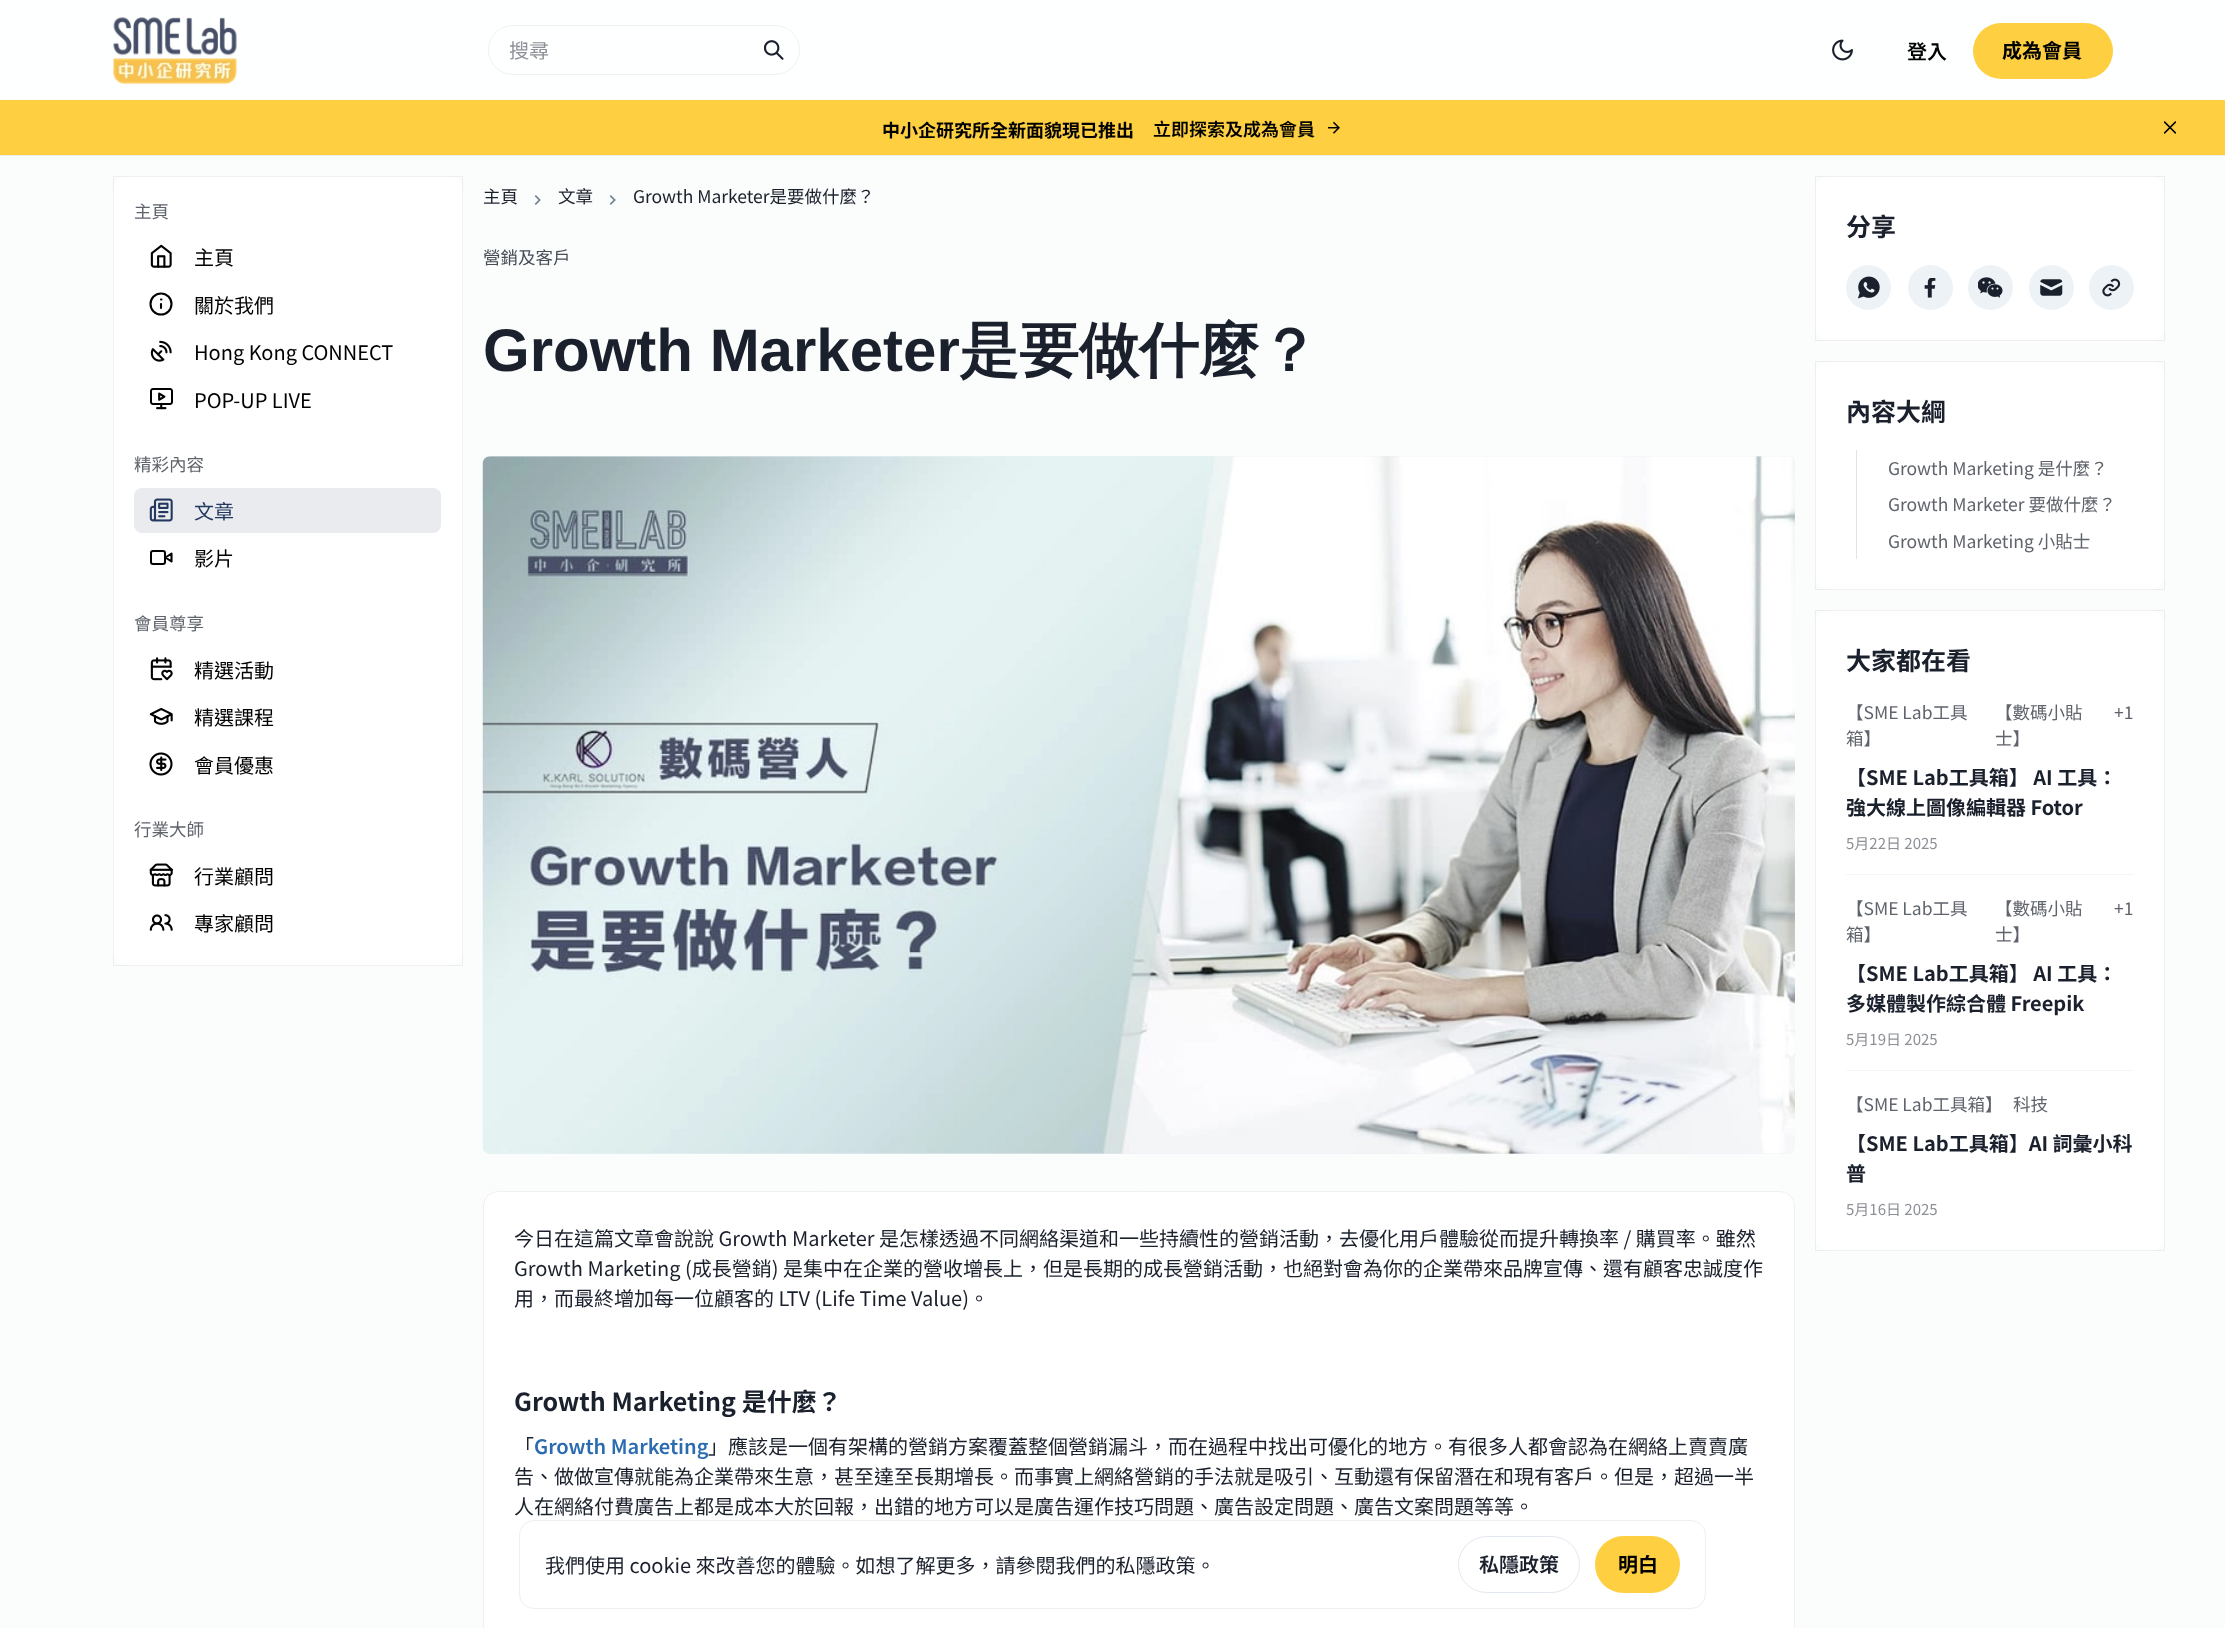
<!DOCTYPE html>
<meta charset="utf-8">
<style>body { margin: 0 } canvas { display: block }</style>
<canvas id="canvas" width="2225" height="1628"></canvas>
<script type="module">
  const canvas = document.getElementById("canvas");
  const g = canvas.getContext("2d");
  g.miterLimit = 4;
  g.fontKerning = "normal";
  function drawText(s, x, y, [font, color]) {
    g.font = font;
    g.fillStyle = color;
    g.fillText(s, x, y);
  }
  function fillBox(x, y, w, h, color) {
    g.fillStyle = color;
    g.fillRect(x, y, w, h);
  }
  function fillRounded(x, y, w, h, r, color) {
    g.fillStyle = color;
    g.beginPath();
    g.roundRect(x, y, w, h, r);
    g.fill();
  }
  async function drawPicture(src, x, y, w, h) {
    const img = new Image();
    img.src = src;
    await img.decode();
    g.drawImage(img, x, y, w, h);
  }

  const s1 = ["20px Noto Sans HK", "#8D9096"];
  const s2 = ["600 20px Noto Sans HK", "#000000"];
  const s3 = ["bold 20px Noto Sans HK", "#000000"];
  const s4 = ["bold 18px Noto Sans HK", "#000000"];
  const s5 = ["600 18px Noto Sans HK", "#000000"];
  const s6 = ["17.5px Noto Sans HK", "#5F636B"];
  const s7 = ["20px Noto Sans HK", "#000000"];
  const s8 = ["20px Noto Sans HK", "#23385E"];
  const s9 = ["17.5px Noto Sans HK", "#1A202C"];
  const s10 = ["17.5px Noto Sans HK", "#474C56"];
  const s11 = ["bold 60px Liberation Sans", "#1A202C"];
  const s12 = ["bold 60px WenQuanYi Zen Hei", "#1A202C"];
  const s13 = ["20px Noto Sans HK", "#1A202C"];
  const s14 = ["bold 25px Noto Sans HK", "#1A202C"];
  const s15 = ["600 20px Noto Sans HK", "#2B6CB0"];
  const s16 = ["bold 20px Noto Sans HK", "#1A202C"];
  const s17 = ["15px Noto Sans HK", "#8D9096"];
  const s18 = ["600 20px Noto Sans HK", "#1A202C"];

  fillBox(0, 0, 2225, 1628, "#FBFCFC");
  fillBox(0, 155, 2225, 1, "#ECEDED");
  fillBox(0, 0, 2225, 100, "#FEFFFF");
  await drawPicture("pic1.png", 113, 17, 124, 67);
  g.beginPath();
  g.roundRect(488.5, 25.5, 311, 49, 24.5);
  g.strokeStyle = "#EFF0F0";
  g.stroke();
  drawText("搜尋", 509, 58, s1);
  await drawPicture("pic2.png", 764, 40, 20, 20);
  await drawPicture("pic3.png", 1832, 39, 21, 22);
  drawText("登入", 1907, 59, s2);
  fillRounded(1973, 23, 140, 56, 28, "#FDCF41");
  drawText("成為會員", 2002, 58, s3);
  fillBox(0, 100, 2225, 55, "#FDCF41");
  drawText("中小企研究所全新面貌現已推出", 882, 137, s4);
  drawText("立即探索及成為會員", 1153, 136, s5);
  await drawPicture("pic4.png", 1328, 121, 12, 13);
  await drawPicture("pic5.png", 2164, 121, 12, 13);
  fillRounded(113, 176, 350, 790, 15, "#FFFFFF");
  g.strokeStyle = "rgba(0, 0, 0, 0.06)";
  g.strokeRect(113.5, 176.5, 349, 789);
  drawText("主頁", 134, 218, s6);
  await drawPicture("pic6.png", 150, 244, 22, 24);
  drawText("主頁", 194, 265, s7);
  g.beginPath();
  g.arc(161, 304, 10.5, 0, Math.PI * 2);
  g.strokeStyle = "#000000";
  g.lineWidth = 2.1;
  g.stroke();
  g.beginPath();
  g.moveTo(161, 308);
  g.lineTo(161, 304);
  g.moveTo(161, 299.5);
  g.lineTo(161.5, 299.5);
  g.lineCap = "round";
  g.lineJoin = "round";
  g.stroke();
  drawText("關於我們", 194, 313, s7);
  await drawPicture("pic7.png", 150, 340, 22, 22);
  drawText("Hong Kong CONNECT", 194, 360, s7);
  await drawPicture("pic8.png", 150, 388, 23, 22);
  drawText("POP-UP LIVE", 194, 408, s7);
  drawText("精彩內容", 134, 471, s6);
  fillRounded(134, 488, 307, 45, 8, "#E9EBEF");
  await drawPicture("pic9.png", 149, 498, 24, 24);
  drawText("文章", 194, 519, s8);
  g.beginPath();
  g.moveTo(171.5, 553.5);
  g.lineTo(165.5, 557.5);
  g.lineTo(171.5, 561.5);
  g.closePath();
  g.stroke();
  g.beginPath();
  g.roundRect(151, 551, 14, 13, 2);
  g.lineWidth = 2;
  g.lineJoin = "miter";
  g.stroke();
  drawText("影片", 194, 566, s7);
  drawText("會員尊享", 134, 630, s6);
  await drawPicture("pic10.png", 150, 657, 23, 24);
  drawText("精選活動", 194, 678, s7);
  await drawPicture("pic11.png", 149, 707, 24, 18);
  drawText("精選課程", 194, 725, s7);
  await drawPicture("pic12.png", 149, 752, 24, 24);
  drawText("會員優惠", 194, 773, s7);
  drawText("行業大師", 134, 836, s6);
  await drawPicture("pic13.png", 149, 863, 24, 24);
  drawText("行業顧問", 194, 884, s7);
  await drawPicture("pic14.png", 149, 914, 24, 17);
  drawText("專家顧問", 194, 931, s7);
  drawText("主頁", 483, 203, s9);
  await drawPicture("pic15.png", 534, 195, 7, 10);
  drawText("文章", 558, 203, s9);
  await drawPicture("pic15.png", 609, 195, 7, 10);
  drawText("Growth Marketer是要做什麼？", 633, 203, s9);
  drawText("營銷及客戶", 483, 264, s10);
  drawText("Growth Marketer", 483, 371, s11);
  drawText("是要做什麼？", 959, 371, s12);
  fillRounded(483, 456, 1312, 698, 8, "#EDF2F7");
  await drawPicture("pic16.png", 482, 456, 1313, 698);
  g.fillStyle = "#FFFFFF";
  g.beginPath();
  g.roundRect(483.5, 1191.5, 1311, 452, 14.5);
  g.fill();
  g.strokeStyle = "#F0F0F0";
  g.lineWidth = 1;
  g.stroke();
  drawText("今日在這篇文章會說說 Growth Marketer 是怎樣透過不同網絡渠道和一些持續性的營銷活動，去優化用戶體驗從而提升轉換率 / 購買率。雖然", 514, 1246, s13);
  drawText("Growth Marketing (成長營銷) 是集中在企業的營收增長上，但是長期的成長營銷活動，也絕對會為你的企業帶來品牌宣傳、還有顧客忠誠度作", 514, 1276, s13);
  drawText("用，而最終增加每一位顧客的 LTV (Life Time Value)。", 514, 1306, s13);
  drawText("Growth Marketing 是什麼？", 514, 1411, s14);
  drawText("「", 514, 1454, s13);
  drawText("Growth Marketing", 534, 1454, s15);
  drawText("」應該是一個有架構的營銷方案覆蓋整個營銷漏斗，而在過程中找出可優化的地方。有很多人都會認為在網絡上賣賣廣", 708, 1454, s13);
  drawText("告、做做宣傳就能為企業帶來生意，甚至達至長期增長。而事實上網絡營銷的手法就是吸引、互動還有保留潛在和現有客戶。但是，超過一半", 514, 1484, s13);
  drawText("人在網絡付費廣告上都是成本大於回報，出錯的地方可以是廣告運作技巧問題、廣告設定問題、廣告文案問題等等。", 514, 1514, s13);
  fillRounded(1815, 176, 350, 165, 15, "#FFFFFF");
  g.strokeStyle = "rgba(0, 0, 0, 0.06)";
  g.strokeRect(1815.5, 176.5, 349, 164);
  drawText("分享", 1846, 236, s14);
  g.fillStyle = "#EDF2F7";
  g.beginPath();
  g.arc(1868.5, 287.5, 22.5, 0, Math.PI * 2);
  g.fill();
  await drawPicture("pic17.png", 1857, 276, 23, 23);
  g.beginPath();
  g.arc(1930.5, 287.5, 22.5, 0, Math.PI * 2);
  g.fill();
  await drawPicture("pic18.png", 1924, 278, 12, 20);
  g.beginPath();
  g.arc(1990.5, 287.5, 22.5, 0, Math.PI * 2);
  g.fill();
  await drawPicture("pic19.png", 1978, 277, 25, 21);
  g.beginPath();
  g.arc(2051.5, 287.5, 22.5, 0, Math.PI * 2);
  g.fill();
  await drawPicture("pic20.png", 2040, 279, 23, 17);
  g.beginPath();
  g.arc(2111.5, 287.5, 22.5, 0, Math.PI * 2);
  g.fill();
  await drawPicture("pic21.png", 2102, 278, 19, 19);
  fillRounded(1815, 361, 350, 229, 15, "#FFFFFF");
  g.strokeRect(1815.5, 361.5, 349, 228);
  drawText("內容大綱", 1846, 421, s14);
  fillBox(1856, 450, 1, 109, "#E3E3E3");
  drawText("Growth Marketing 是什麼？", 1888, 475, s6);
  drawText("Growth Marketer 要做什麼？", 1888, 511, s6);
  drawText("Growth Marketing 小貼士", 1888, 548, s6);
  fillRounded(1815, 610, 350, 641, 15, "#FFFFFF");
  g.strokeRect(1815.5, 610.5, 349, 640);
  drawText("大家都在看", 1846, 670, s14);
  drawText("【SME Lab工具", 1846, 719, s6);
  drawText("箱】", 1846, 745, s6);
  drawText("【數碼小貼", 1995, 719, s6);
  drawText("士】", 1995, 745, s6);
  drawText("+1", 2114, 719, s6);
  drawText("【SME Lab工具箱】 AI 工具：", 1846, 785, s16);
  drawText("強大線上圖像編輯器 Fotor", 1846, 815, s16);
  drawText("5月22日 2025", 1846, 849, s17);
  fillBox(1846, 874, 288, 1, "#F6F6F6");
  drawText("【SME Lab工具", 1846, 915, s6);
  drawText("箱】", 1846, 941, s6);
  drawText("【數碼小貼", 1995, 915, s6);
  drawText("士】", 1995, 941, s6);
  drawText("+1", 2114, 915, s6);
  drawText("【SME Lab工具箱】 AI 工具：", 1846, 981, s16);
  drawText("多媒體製作綜合體 Freepik", 1846, 1011, s16);
  drawText("5月19日 2025", 1846, 1045, s17);
  fillBox(1846, 1070, 288, 1, "#F6F6F6");
  drawText("【SME Lab工具箱】", 1846, 1111, s6);
  drawText("科技", 2013, 1111, s6);
  drawText("【SME Lab工具箱】AI 詞彙小科", 1846, 1151, s16);
  drawText("普", 1846, 1181, s16);
  drawText("5月16日 2025", 1846, 1215, s17);
  g.beginPath();
  g.roundRect(519.5, 1520.5, 1186, 88, 14.5);
  g.strokeStyle = "#EFEFEF";
  g.stroke();
  drawText("我們使用 cookie 來改善您的體驗。如想了解更多，請參閱我們的私隱政策。", 545, 1573, s13);
  g.beginPath();
  g.roundRect(1458.5, 1536.5, 121, 56, 28);
  g.strokeStyle = "#E2E8F0";
  g.stroke();
  drawText("私隱政策", 1479, 1572, s18);
  fillRounded(1595, 1536, 85, 57, 28.5, "#FDCF41");
  drawText("明白", 1618, 1572, s3);
</script>
